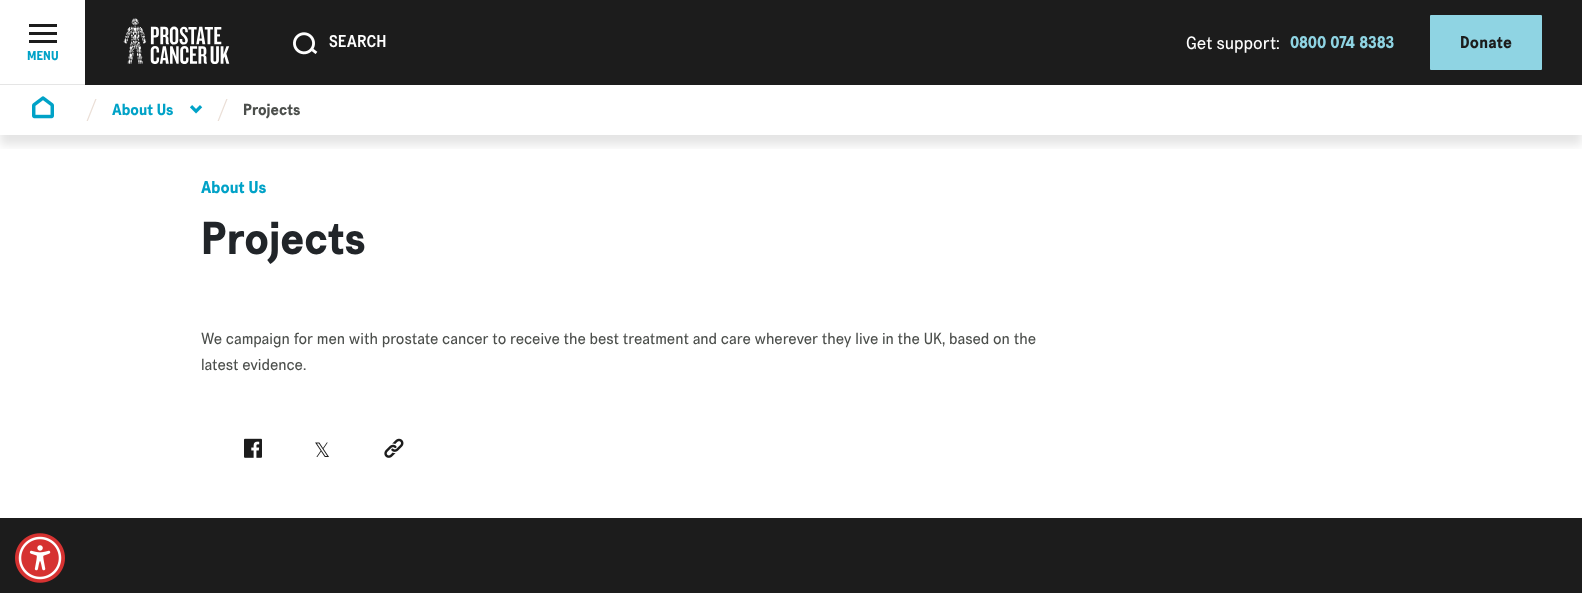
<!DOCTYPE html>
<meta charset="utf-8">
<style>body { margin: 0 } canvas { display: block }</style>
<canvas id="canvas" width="1582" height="593"></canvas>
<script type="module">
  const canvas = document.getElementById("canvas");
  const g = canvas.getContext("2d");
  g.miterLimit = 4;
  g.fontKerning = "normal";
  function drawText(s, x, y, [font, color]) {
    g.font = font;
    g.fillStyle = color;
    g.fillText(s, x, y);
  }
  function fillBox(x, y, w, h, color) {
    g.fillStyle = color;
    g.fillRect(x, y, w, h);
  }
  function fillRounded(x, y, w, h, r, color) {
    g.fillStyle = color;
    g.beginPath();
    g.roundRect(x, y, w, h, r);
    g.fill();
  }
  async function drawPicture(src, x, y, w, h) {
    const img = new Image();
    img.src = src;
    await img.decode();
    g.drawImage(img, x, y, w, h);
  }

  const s1 = ["500 17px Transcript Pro", "#FFFFFF"];
  const s2 = ["18px Transcript Pro", "#FFFFFF"];
  const s3 = ["bold 17px Transcript Pro", "#8FD4E3"];
  const s4 = ["bold 17px Transcript Pro", "#1C1C1C"];
  const s5 = ["bold 13px Transcript Pro", "#00A2C7"];
  const s6 = ["200 30px Transcript Pro", "#EADED6"];
  const s7 = ["bold 16px Transcript Pro", "#00A2C7"];
  const s8 = ["bold 16px Transcript Pro", "#4C4F4C"];
  const s9 = ["bold 17px Transcript Pro", "#00A2C7"];
  const s10 = ["bold 46px Transcript Pro", "#212529"];
  const s11 = ["16px Transcript Pro", "#4C4F4C"];
  const s12 = ["20px DejaVu Sans", "#1C1C1C"];

  fillBox(0, 0, 1582, 593, "#FFFFFF");
  g.save();
  g.beginPath();
  g.rect(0, 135, 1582, 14);
  g.clip();
  g.fillStyle = "rgba(0, 0, 0, 0.1)";
  g.filter = "blur(5px)";
  g.beginPath();
  g.rect(0, 95, 1582, 50);
  g.fill();
  g.filter = "none";
  g.restore();
  fillBox(85, 0, 1497, 85, "#1C1C1C");
  await drawPicture("pic1.png", 123, 18, 107, 46);
  await drawPicture("pic2.png", 293, 32, 25, 23);
  drawText("SEARCH", 329, 47, s1);
  drawText("Get support:", 1186, 49, s2);
  drawText("0800 074 8383", 1290, 48, s3);
  fillRounded(1430, 15, 112, 55, 1, "#8FD4E3");
  g.letterSpacing = "0.25px";
  drawText("Donate", 1460, 48, s4);
  fillBox(29, 24, 28, 3, "#1C1C1C");
  fillBox(29, 32, 28, 3, "#1C1C1C");
  fillBox(29, 40, 28, 3, "#1C1C1C");
  g.letterSpacing = "0px";
  drawText("MENU", 27, 60, s5);
  fillBox(0, 84, 85, 1, "#E5E5E5");
  await drawPicture("pic3.png", 32, 96, 22, 23);
  g.save();
  g.beginPath();
  g.rect(86, 99, 104, 22);
  g.clip();
  drawText("/", 86, 120, s6);
  g.restore();
  drawText("About Us", 112, 115, s7);
  await drawPicture("pic4.png", 190, 105, 13, 9);
  g.save();
  g.beginPath();
  g.rect(217, 99, 100, 22);
  g.clip();
  drawText("/", 217, 120, s6);
  g.restore();
  drawText("Projects", 243, 115, s8);
  drawText("About Us", 201, 193, s9);
  drawText("Projects", 201, 254, s10);
  drawText("We campaign for men with prostate cancer to receive the best treatment and care wherever they live in the UK, based on the", 201, 344, s11);
  drawText("latest evidence.", 201, 370, s11);
  await drawPicture("pic5.png", 244, 438, 18, 20);
  drawText("𝕏", 314, 457, s12);
  await drawPicture("pic6.png", 384, 438, 20, 20);
  fillBox(0, 518, 1582, 75, "#1C1C1C");
  await drawPicture("pic7.png", 15, 533, 50, 50);
</script>
